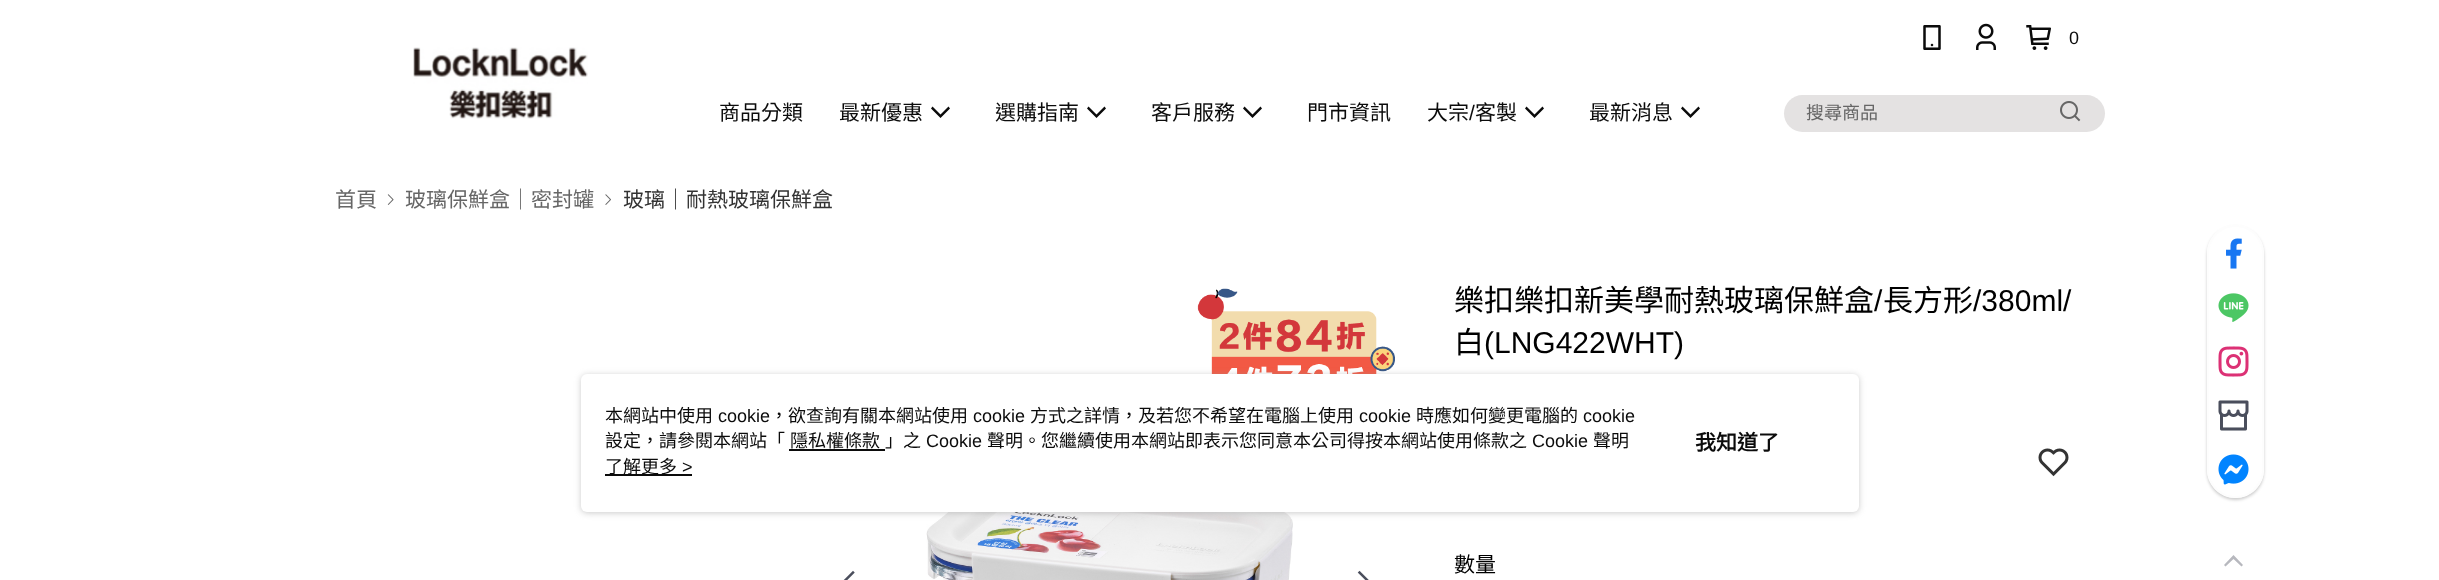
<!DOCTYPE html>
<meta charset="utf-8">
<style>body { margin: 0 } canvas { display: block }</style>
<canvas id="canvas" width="2439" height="580"></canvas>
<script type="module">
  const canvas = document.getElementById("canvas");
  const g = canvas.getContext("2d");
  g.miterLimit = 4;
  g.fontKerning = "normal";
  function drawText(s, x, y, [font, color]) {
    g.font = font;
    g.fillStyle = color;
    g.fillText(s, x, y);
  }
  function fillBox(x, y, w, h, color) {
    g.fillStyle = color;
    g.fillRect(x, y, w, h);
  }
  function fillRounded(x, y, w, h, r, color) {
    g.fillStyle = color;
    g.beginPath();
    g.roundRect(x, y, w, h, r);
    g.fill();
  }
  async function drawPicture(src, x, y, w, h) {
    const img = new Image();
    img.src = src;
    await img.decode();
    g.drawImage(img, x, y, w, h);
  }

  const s1 = ["18px Liberation Sans", "#0B0B0B"];
  const s2 = ["21px Noto Sans CJK TC", "#0B0B0B"];
  const s3 = ["21px Liberation Sans", "#0B0B0B"];
  const s4 = ["18px Noto Sans CJK TC", "#666666"];
  const s5 = ["21px Noto Sans CJK TC", "#666666"];
  const s6 = ["21px Noto Sans CJK TC", "#333333"];
  const s7 = ["30px Noto Sans CJK TC", "#000000"];
  const s8 = ["30px Liberation Sans", "#000000"];
  const s9 = ["21px Noto Sans CJK TC", "#000000"];
  const s10 = ["18px Noto Sans CJK TC", "#0B0B0B"];
  const s11 = ["bold 21px Noto Sans CJK TC", "#0B0B0B"];

  fillBox(0, 0, 2439, 580, "#FFFFFF");
  await drawPicture("pic1.png", 413, 47, 175, 72);
  await drawPicture("pic2.png", 1923, 25, 18, 25);
  await drawPicture("pic3.png", 1976, 23, 20, 27);
  await drawPicture("pic4.png", 2026, 25, 25, 25);
  drawText("0", 2069, 44, s1);
  drawText("商品分類", 719, 120, s2);
  drawText("最新優惠", 839, 120, s2);
  g.beginPath();
  g.moveTo(932.5, 106.5);
  g.lineTo(931, 108.5);
  g.lineTo(940.5, 118);
  g.lineTo(950, 108.5);
  g.lineTo(948.5, 106.5);
  g.lineTo(940.5, 114.5);
  g.closePath();
  g.fill();
  drawText("選購指南", 995, 120, s2);
  g.beginPath();
  g.moveTo(1088.5, 106.5);
  g.lineTo(1087, 108.5);
  g.lineTo(1096.5, 118);
  g.lineTo(1106, 108.5);
  g.lineTo(1104.5, 106.5);
  g.lineTo(1096.5, 114.5);
  g.closePath();
  g.fill();
  drawText("客戶服務", 1151, 120, s2);
  g.beginPath();
  g.moveTo(1244.5, 106.5);
  g.lineTo(1243, 108.5);
  g.lineTo(1252.5, 118);
  g.lineTo(1262, 108.5);
  g.lineTo(1260.5, 106.5);
  g.lineTo(1252.5, 114.5);
  g.closePath();
  g.fill();
  drawText("門市資訊", 1307, 120, s2);
  drawText("大宗", 1427, 120, s2);
  drawText("/", 1469, 120, s3);
  drawText("客製", 1475, 120, s2);
  g.beginPath();
  g.moveTo(1526.5, 106.5);
  g.lineTo(1525, 108.5);
  g.lineTo(1534.5, 118);
  g.lineTo(1544, 108.5);
  g.lineTo(1542.5, 106.5);
  g.lineTo(1534.5, 114.5);
  g.closePath();
  g.fill();
  drawText("最新消息", 1589, 120, s2);
  g.beginPath();
  g.moveTo(1682.5, 106.5);
  g.lineTo(1681, 108.5);
  g.lineTo(1690.5, 118);
  g.lineTo(1700, 108.5);
  g.lineTo(1698.5, 106.5);
  g.lineTo(1690.5, 114.5);
  g.closePath();
  g.fill();
  fillRounded(1784, 95, 321, 37, 18.5, "#E4E2E2");
  drawText("搜尋商品", 1806, 119, s4);
  await drawPicture("pic5.png", 2060, 101, 21, 21);
  drawText("首頁", 335, 207, s5);
  await drawPicture("pic6.png", 387, 194, 7, 11);
  drawText("玻璃保鮮盒｜密封罐", 405, 207, s5);
  await drawPicture("pic7.png", 605, 194, 6, 11);
  drawText("玻璃｜耐熱玻璃保鮮盒", 623, 207, s6);
  await drawPicture("pic8.png", 843, 570, 12, 10);
  await drawPicture("pic9.png", 1197, 288, 198, 86);
  await drawPicture("pic10.png", 926, 512, 367, 68);
  await drawPicture("pic11.png", 1357, 570, 12, 10);
  drawText("樂扣樂扣新美學耐熱玻璃保鮮盒", 1454, 311, s7);
  drawText("/", 1874, 311, s8);
  drawText("長方形", 1883, 311, s7);
  drawText("/380ml/", 1973, 311, s8);
  drawText("白", 1454, 353, s7);
  drawText("(LNG422WHT)", 1484, 353, s8);
  await drawPicture("pic12.png", 2038, 448, 31, 29);
  drawText("數量", 1454, 572, s9);
  g.save();
  g.beginPath();
  g.moveTo(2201, 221);
  g.lineTo(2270, 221);
  g.lineTo(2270, 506);
  g.lineTo(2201, 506);
  g.closePath();
  g.moveTo(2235.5, 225);
  g.bezierCurveTo(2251, 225, 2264, 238, 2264, 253.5);
  g.lineTo(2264, 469.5);
  g.bezierCurveTo(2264, 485, 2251, 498, 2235.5, 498);
  g.bezierCurveTo(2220, 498, 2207, 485, 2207, 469.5);
  g.lineTo(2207, 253.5);
  g.bezierCurveTo(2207, 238, 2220, 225, 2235.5, 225);
  g.closePath();
  g.clip("evenodd");
  g.fillStyle = "rgba(0, 0, 0, 0.2)";
  g.filter = "blur(1.5px)";
  g.beginPath();
  g.roundRect(2207, 227, 57, 273, 28.5);
  g.fill();
  g.filter = "none";
  g.restore();
  g.fillStyle = "rgba(255, 255, 255, 0.9)";
  g.beginPath();
  g.roundRect(2208, 226, 55, 271, 27.5);
  g.fill();
  g.strokeStyle = "#FDFDFD";
  g.lineWidth = 2;
  g.stroke();
  await drawPicture("pic13.png", 2226, 238, 16, 31);
  await drawPicture("pic14.png", 2218, 293, 31, 29);
  await drawPicture("pic15.png", 2218, 346, 31, 31);
  await drawPicture("pic16.png", 2218, 400, 31, 31);
  await drawPicture("pic17.png", 2218, 454, 31, 31);
  g.fillStyle = "#B7B8BE";
  g.beginPath();
  g.moveTo(2241.5, 566.5);
  g.lineTo(2243, 565);
  g.lineTo(2233.5, 555);
  g.lineTo(2224, 565);
  g.lineTo(2225.5, 566.5);
  g.lineTo(2233.5, 559);
  g.closePath();
  g.fill();
  g.fillStyle = "rgba(151, 151, 151, 0.5)";
  g.filter = "blur(3px)";
  g.beginPath();
  g.roundRect(581, 375, 1278, 138, 6);
  g.fill();
  g.filter = "none";
  fillRounded(581, 374, 1278, 138, 6, "#FFFFFF");
  drawText("本網站中使用", 605, 422, s10);
  drawText("cookie", 718, 422, s1);
  drawText("，欲查詢有關本網站使用", 770, 422, s10);
  drawText("cookie", 973, 422, s1);
  drawText("方式之詳情，及若您不希望在電腦上使用", 1030, 422, s10);
  drawText("cookie", 1359, 422, s1);
  drawText("時應如何變更電腦的", 1416, 422, s10);
  drawText("cookie", 1583, 422, s1);
  drawText("設定，請參閱本網站「", 605, 447, s10);
  drawText("隱私權條款", 790, 447, s10);
  fillBox(789, 449, 96, 2, "#0B0B0B");
  drawText("」之", 885, 447, s10);
  drawText("Cookie", 926, 447, s1);
  drawText("聲明。您繼續使用本網站即表示您同意本公司得按本網站使用條款之", 987, 447, s10);
  drawText("Cookie", 1532, 447, s1);
  drawText("聲明", 1593, 447, s10);
  fillBox(605, 474, 87, 2, "#0B0B0B");
  drawText("了解更多", 605, 473, s10);
  drawText(">", 682, 473, s1);
  drawText("我知道了", 1695, 450, s11);
</script>
